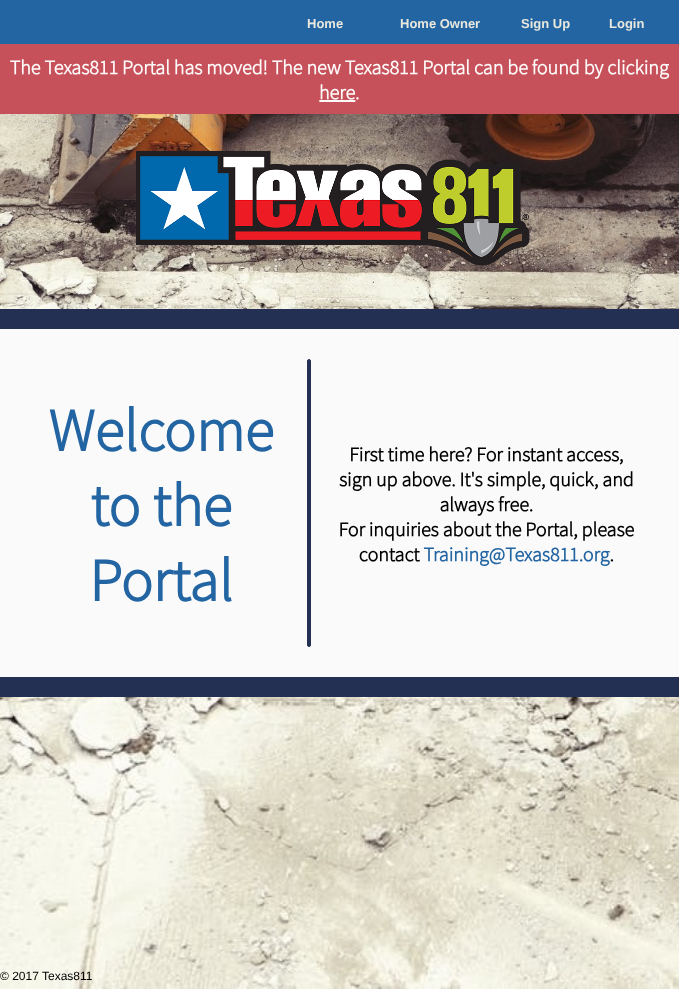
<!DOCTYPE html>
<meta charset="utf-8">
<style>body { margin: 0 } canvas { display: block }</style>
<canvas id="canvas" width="679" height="989"></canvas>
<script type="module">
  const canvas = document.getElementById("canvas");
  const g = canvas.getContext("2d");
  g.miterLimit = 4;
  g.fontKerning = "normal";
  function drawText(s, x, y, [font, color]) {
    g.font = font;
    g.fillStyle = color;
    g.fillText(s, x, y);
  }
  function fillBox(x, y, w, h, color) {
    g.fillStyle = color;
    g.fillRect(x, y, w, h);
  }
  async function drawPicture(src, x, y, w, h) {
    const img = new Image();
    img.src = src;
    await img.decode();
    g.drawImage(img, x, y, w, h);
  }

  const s1 = ["bold 13px Liberation Sans", "#E8E8DE"];
  const s2 = ["12px Liberation Sans", "#000000"];

  fillBox(0, 0, 679, 989, "#FFFFFF");
  await drawPicture("pic1.png", 0, 697, 679, 292);
  fillBox(0, 0, 679, 44, "#2365A2");
  drawText("Home", 307, 28, s1);
  drawText("Home Owner", 400, 28, s1);
  drawText("Sign Up", 521, 28, s1);
  drawText("Login", 609, 28, s1);
  await drawPicture("pic2.png", 0, 44, 679, 653);
  drawText("© 2017 Texas811", 0, 980, s2);
</script>
